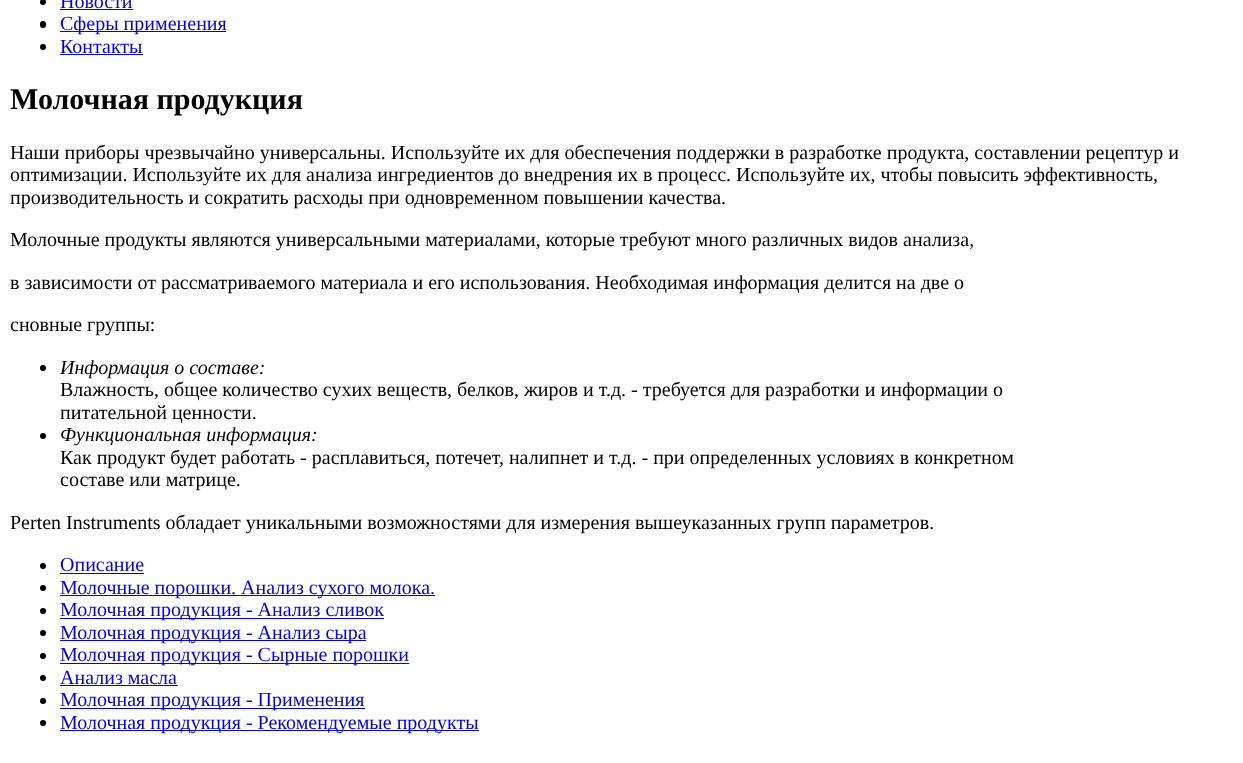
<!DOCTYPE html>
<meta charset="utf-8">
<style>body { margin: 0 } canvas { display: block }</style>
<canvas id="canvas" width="1243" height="763"></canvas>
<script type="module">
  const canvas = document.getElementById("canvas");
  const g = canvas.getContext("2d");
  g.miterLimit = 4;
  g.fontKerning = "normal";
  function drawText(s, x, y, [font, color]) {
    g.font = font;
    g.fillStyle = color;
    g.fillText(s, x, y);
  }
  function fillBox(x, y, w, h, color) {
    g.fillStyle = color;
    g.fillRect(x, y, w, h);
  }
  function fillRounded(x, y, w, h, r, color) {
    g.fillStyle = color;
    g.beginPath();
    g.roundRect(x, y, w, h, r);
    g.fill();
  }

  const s1 = ["20px Liberation Serif", "#0000EE"];
  const s2 = ["bold 30px Liberation Serif", "#000000"];
  const s3 = ["20px Liberation Serif", "#000000"];
  const s4 = ["italic 20px Liberation Serif", "#000000"];

  fillBox(0, 0, 1243, 763, "#FFFFFF");
  g.fillStyle = "#000000";
  g.beginPath();
  g.arc(43, 2, 3, 0, Math.PI * 2);
  g.fill();
  drawText("Новости", 60, 8, s1);
  fillBox(60, 9, 73, 1, "#0000EE");
  fillRounded(40, 21, 6, 7, 3, "#000000");
  fillBox(60, 31, 166, 1, "#0000EE");
  drawText("Сферы применения", 60, 30, s1);
  g.fillStyle = "#000000";
  g.beginPath();
  g.arc(43, 47, 3, 0, Math.PI * 2);
  g.fill();
  drawText("Контакты", 60, 53, s1);
  fillBox(60, 54, 83, 1, "#0000EE");
  drawText("Молочная продукция", 10, 109, s2);
  drawText("Наши приборы чрезвычайно универсальны. Используйте их для обеспечения поддержки в разработке продукта, составлении рецептур и", 10, 159, s3);
  drawText("оптимизации. Используйте их для анализа ингредиентов до внедрения их в процесс. Используйте их, чтобы повысить эффективность,", 10, 181, s3);
  drawText("производительность и сократить расходы при одновременном повышении качества.", 10, 204, s3);
  drawText("Молочные продукты являются универсальными материалами, которые требуют много различных видов анализа,", 10, 246, s3);
  drawText("в зависимости от рассматриваемого материала и его использования. Необходимая информация делится на две о", 10, 289, s3);
  drawText("сновные группы:", 10, 331, s3);
  g.beginPath();
  g.arc(43, 368, 3, 0, Math.PI * 2);
  g.fill();
  drawText("Информация о составе:", 60, 374, s4);
  drawText("Влажность, общее количество сухих веществ, белков, жиров и т.д. - требуется для разработки и информации о", 60, 396, s3);
  drawText("питательной ценности.", 60, 419, s3);
  g.beginPath();
  g.arc(43, 436, 3, 0, Math.PI * 2);
  g.fill();
  drawText("Функциональная информация:", 60, 441, s4);
  drawText("Как продукт будет работать - расплавиться, потечет, налипнет и т.д. - при определенных условиях в конкретном", 60, 464, s3);
  drawText("составе или матрице.", 60, 486, s3);
  drawText("Perten Instruments обладает уникальными возможностями для измерения вышеуказанных групп параметров.", 10, 529, s3);
  g.beginPath();
  g.arc(43, 566, 3, 0, Math.PI * 2);
  g.fill();
  drawText("Описание", 60, 571, s1);
  fillBox(60, 573, 84, 1, "#0000EE");
  g.fillStyle = "#000000";
  g.beginPath();
  g.arc(43, 588, 3, 0, Math.PI * 2);
  g.fill();
  fillBox(60, 595, 375, 1, "#0000EE");
  drawText("Молочные порошки. Анализ сухого молока.", 60, 594, s1);
  g.fillStyle = "#000000";
  g.beginPath();
  g.arc(43, 611, 3, 0, Math.PI * 2);
  g.fill();
  fillBox(60, 618, 324, 1, "#0000EE");
  drawText("Молочная продукция - Анализ сливок", 60, 616, s1);
  g.fillStyle = "#000000";
  g.beginPath();
  g.arc(43, 633, 3, 0, Math.PI * 2);
  g.fill();
  fillBox(60, 640, 306, 1, "#0000EE");
  drawText("Молочная продукция - Анализ сыра", 60, 639, s1);
  g.fillStyle = "#000000";
  g.beginPath();
  g.arc(43, 656, 3, 0, Math.PI * 2);
  g.fill();
  fillBox(60, 663, 349, 1, "#0000EE");
  drawText("Молочная продукция - Сырные порошки", 60, 661, s1);
  g.fillStyle = "#000000";
  g.beginPath();
  g.arc(43, 678, 3, 0, Math.PI * 2);
  g.fill();
  drawText("Анализ масла", 60, 684, s1);
  fillBox(60, 685, 118, 1, "#0000EE");
  g.fillStyle = "#000000";
  g.beginPath();
  g.arc(43, 701, 3, 0, Math.PI * 2);
  g.fill();
  fillBox(60, 708, 305, 1, "#0000EE");
  drawText("Молочная продукция - Применения", 60, 706, s1);
  g.fillStyle = "#000000";
  g.beginPath();
  g.arc(43, 723, 3, 0, Math.PI * 2);
  g.fill();
  fillBox(60, 730, 419, 1, "#0000EE");
  drawText("Молочная продукция - Рекомендуемые продукты", 60, 729, s1);
</script>
